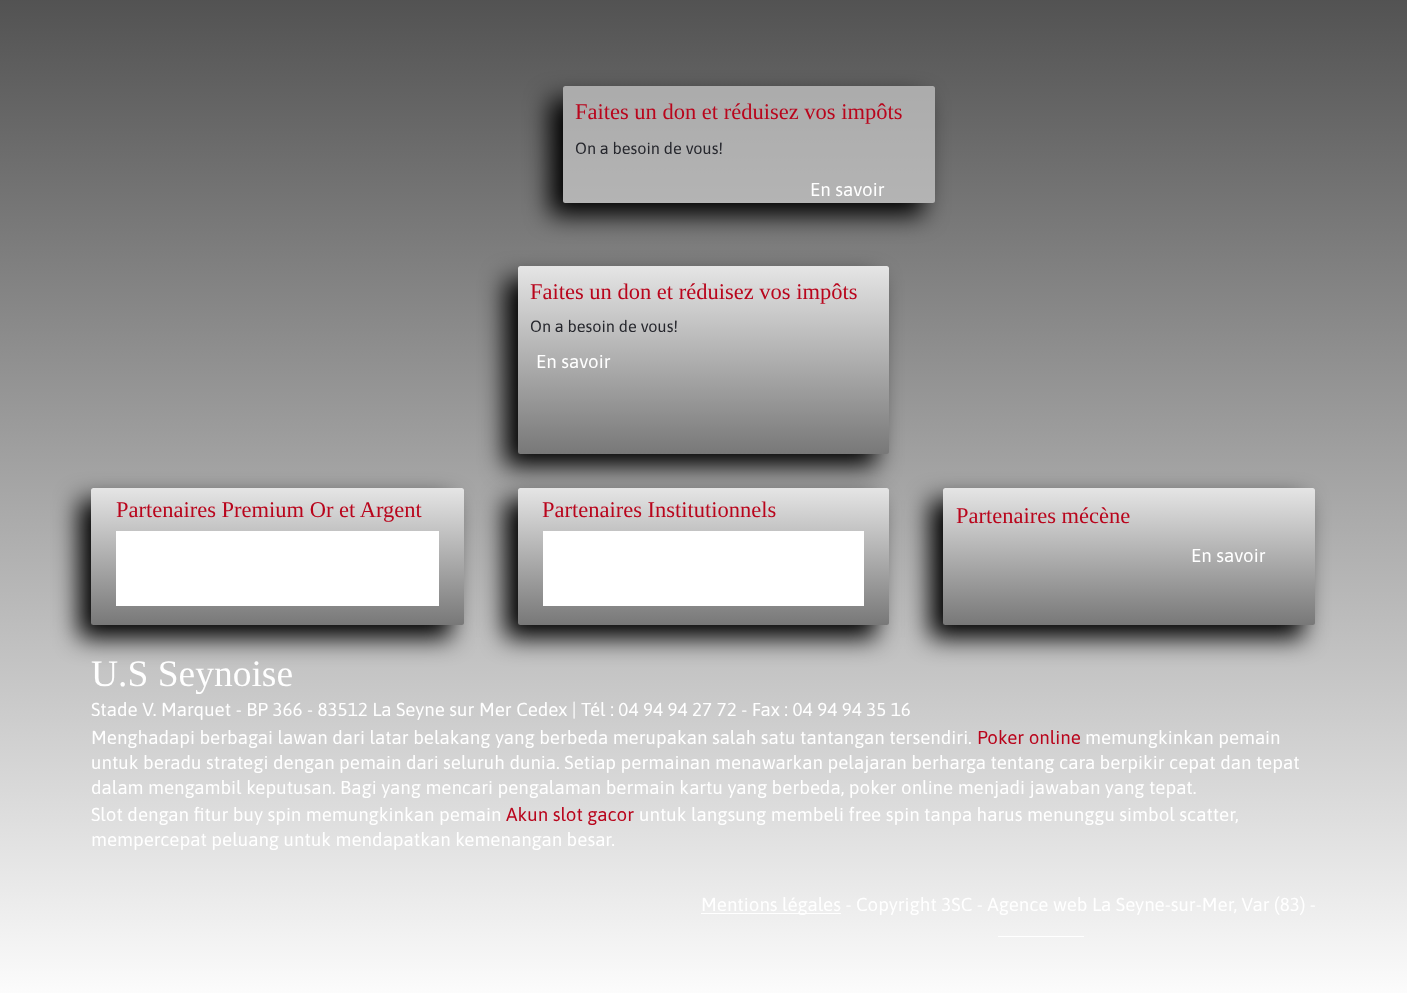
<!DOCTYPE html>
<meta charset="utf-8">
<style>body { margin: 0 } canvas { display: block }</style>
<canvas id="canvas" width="1407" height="993"></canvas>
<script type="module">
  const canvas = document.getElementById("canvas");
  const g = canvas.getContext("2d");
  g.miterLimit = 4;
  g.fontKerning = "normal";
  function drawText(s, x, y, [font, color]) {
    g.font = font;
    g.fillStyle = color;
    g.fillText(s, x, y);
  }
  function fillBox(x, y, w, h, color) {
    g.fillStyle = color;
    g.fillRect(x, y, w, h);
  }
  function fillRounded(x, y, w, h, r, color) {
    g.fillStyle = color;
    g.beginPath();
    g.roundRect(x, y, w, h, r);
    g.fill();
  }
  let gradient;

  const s1 = ["22.5px Liberation Serif", "#B9051C"];
  const s2 = ["16.25px Asap", "#26272D"];
  const s3 = ["18.75px Asap", "#FFFFFF"];
  const s4 = ["37.5px Liberation Serif", "#FFFFFF"];
  const s5 = ["18.75px Asap", "#B9051C"];

  fillBox(0, 0, 1407, 993, "#FFFFFF");
  gradient = g.createLinearGradient(704, -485, 704, 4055);
  gradient.addColorStop(0, "#000000");
  gradient.addColorStop(0.33, "#FFFFFF");
  gradient.addColorStop(1, "#000000");
  g.fillStyle = gradient;
  g.fillRect(0, 0, 1407, 993);
  g.save();
  g.beginPath();
  g.moveTo(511, 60);
  g.lineTo(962, 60);
  g.lineTo(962, 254);
  g.lineTo(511, 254);
  g.closePath();
  g.moveTo(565.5, 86);
  g.lineTo(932.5, 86);
  g.bezierCurveTo(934, 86, 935, 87, 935, 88.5);
  g.lineTo(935, 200.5);
  g.bezierCurveTo(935, 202, 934, 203, 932.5, 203);
  g.lineTo(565.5, 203);
  g.bezierCurveTo(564, 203, 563, 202, 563, 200.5);
  g.lineTo(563, 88.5);
  g.bezierCurveTo(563, 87, 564, 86, 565.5, 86);
  g.closePath();
  g.clip("evenodd");
  g.fillStyle = "#000000";
  g.filter = "blur(12.5px)";
  g.beginPath();
  g.roundRect(550, 99, 373, 116, 2.5);
  g.fill();
  g.filter = "none";
  g.restore();
  fillRounded(563, 86, 372, 117, 2.5, "rgba(221, 221, 221, 0.6)");
  drawText("Faites un don et réduisez vos impôts", 575, 119, s1);
  drawText("On a besoin de vous!", 575, 154, s2);
  drawText("En savoir", 810, 196, s3);
  g.fillStyle = "#000000";
  g.filter = "blur(12.5px)";
  g.beginPath();
  g.roundRect(505, 279, 371, 187, 2.5);
  g.fill();
  g.filter = "none";
  gradient = g.createLinearGradient(703, 266, 703, 454);
  gradient.addColorStop(0, "#E5E5E5");
  gradient.addColorStop(1, "#787878");
  g.fillStyle = gradient;
  g.beginPath();
  g.roundRect(518, 266, 371, 188, 2.5);
  g.fill();
  drawText("Faites un don et réduisez vos impôts", 530, 299, s1);
  drawText("On a besoin de vous!", 530, 332, s2);
  drawText("En savoir", 536, 368, s3);
  g.fillStyle = "#000000";
  g.filter = "blur(12.5px)";
  g.beginPath();
  g.roundRect(79, 500, 372, 138, 2.5);
  g.fill();
  g.filter = "none";
  gradient = g.createLinearGradient(278, 488, 278, 625);
  gradient.addColorStop(0, "#E5E5E5");
  gradient.addColorStop(1, "#787878");
  g.fillStyle = gradient;
  g.beginPath();
  g.roundRect(91, 488, 373, 137, 2.5);
  g.fill();
  drawText("Partenaires Premium Or et Argent", 116, 517, s1);
  fillBox(116, 531, 323, 75, "#FFFFFF");
  g.fillStyle = "#000000";
  g.filter = "blur(12.5px)";
  g.beginPath();
  g.roundRect(505, 500, 371, 138, 2.5);
  g.fill();
  g.filter = "none";
  gradient = g.createLinearGradient(703, 488, 703, 625);
  gradient.addColorStop(0, "#E5E5E5");
  gradient.addColorStop(1, "#787878");
  g.fillStyle = gradient;
  g.beginPath();
  g.roundRect(518, 488, 371, 137, 2.5);
  g.fill();
  drawText("Partenaires Institutionnels", 542, 517, s1);
  fillBox(543, 531, 321, 75, "#FFFFFF");
  g.fillStyle = "#000000";
  g.filter = "blur(12.5px)";
  g.beginPath();
  g.roundRect(930, 500, 373, 138, 2.5);
  g.fill();
  g.filter = "none";
  gradient = g.createLinearGradient(1129, 488, 1129, 625);
  gradient.addColorStop(0, "#E5E5E5");
  gradient.addColorStop(1, "#787878");
  g.fillStyle = gradient;
  g.beginPath();
  g.roundRect(943, 488, 372, 137, 2.5);
  g.fill();
  drawText("Partenaires mécène", 956, 523, s1);
  drawText("En savoir", 1191, 562, s3);
  drawText("U.S Seynoise", 91, 686, s4);
  drawText("Stade V. Marquet - BP 366 - 83512 La Seyne sur Mer Cedex | Tél : 04 94 94 27 72 - Fax : 04 94 94 35 16", 91, 716, s3);
  drawText("Menghadapi berbagai lawan dari latar belakang yang berbeda merupakan salah satu tantangan tersendiri.", 91, 744, s3);
  drawText("Poker online", 977, 744, s5);
  drawText("memungkinkan pemain", 1085, 744, s3);
  drawText("untuk beradu strategi dengan pemain dari seluruh dunia. Setiap permainan menawarkan pelajaran berharga tentang cara berpikir cepat dan tepat", 91, 769, s3);
  drawText("dalam mengambil keputusan. Bagi yang mencari pengalaman bermain kartu yang berbeda, poker online menjadi jawaban yang tepat.", 91, 794, s3);
  drawText("Slot dengan fitur buy spin memungkinkan pemain", 91, 821, s3);
  drawText("Akun slot gacor", 506, 821, s5);
  drawText("untuk langsung membeli free spin tanpa harus menunggu simbol scatter,", 639, 821, s3);
  drawText("mempercepat peluang untuk mendapatkan kemenangan besar.", 91, 846, s3);
  fillBox(701, 913, 140, 1, "#FFFFFF");
  drawText("Mentions légales - Copyright 3SC - Agence web La Seyne-sur-Mer, Var (83) -", 701, 911, s3);
  fillBox(998, 936, 86, 1, "#FFFFFF");
</script>
